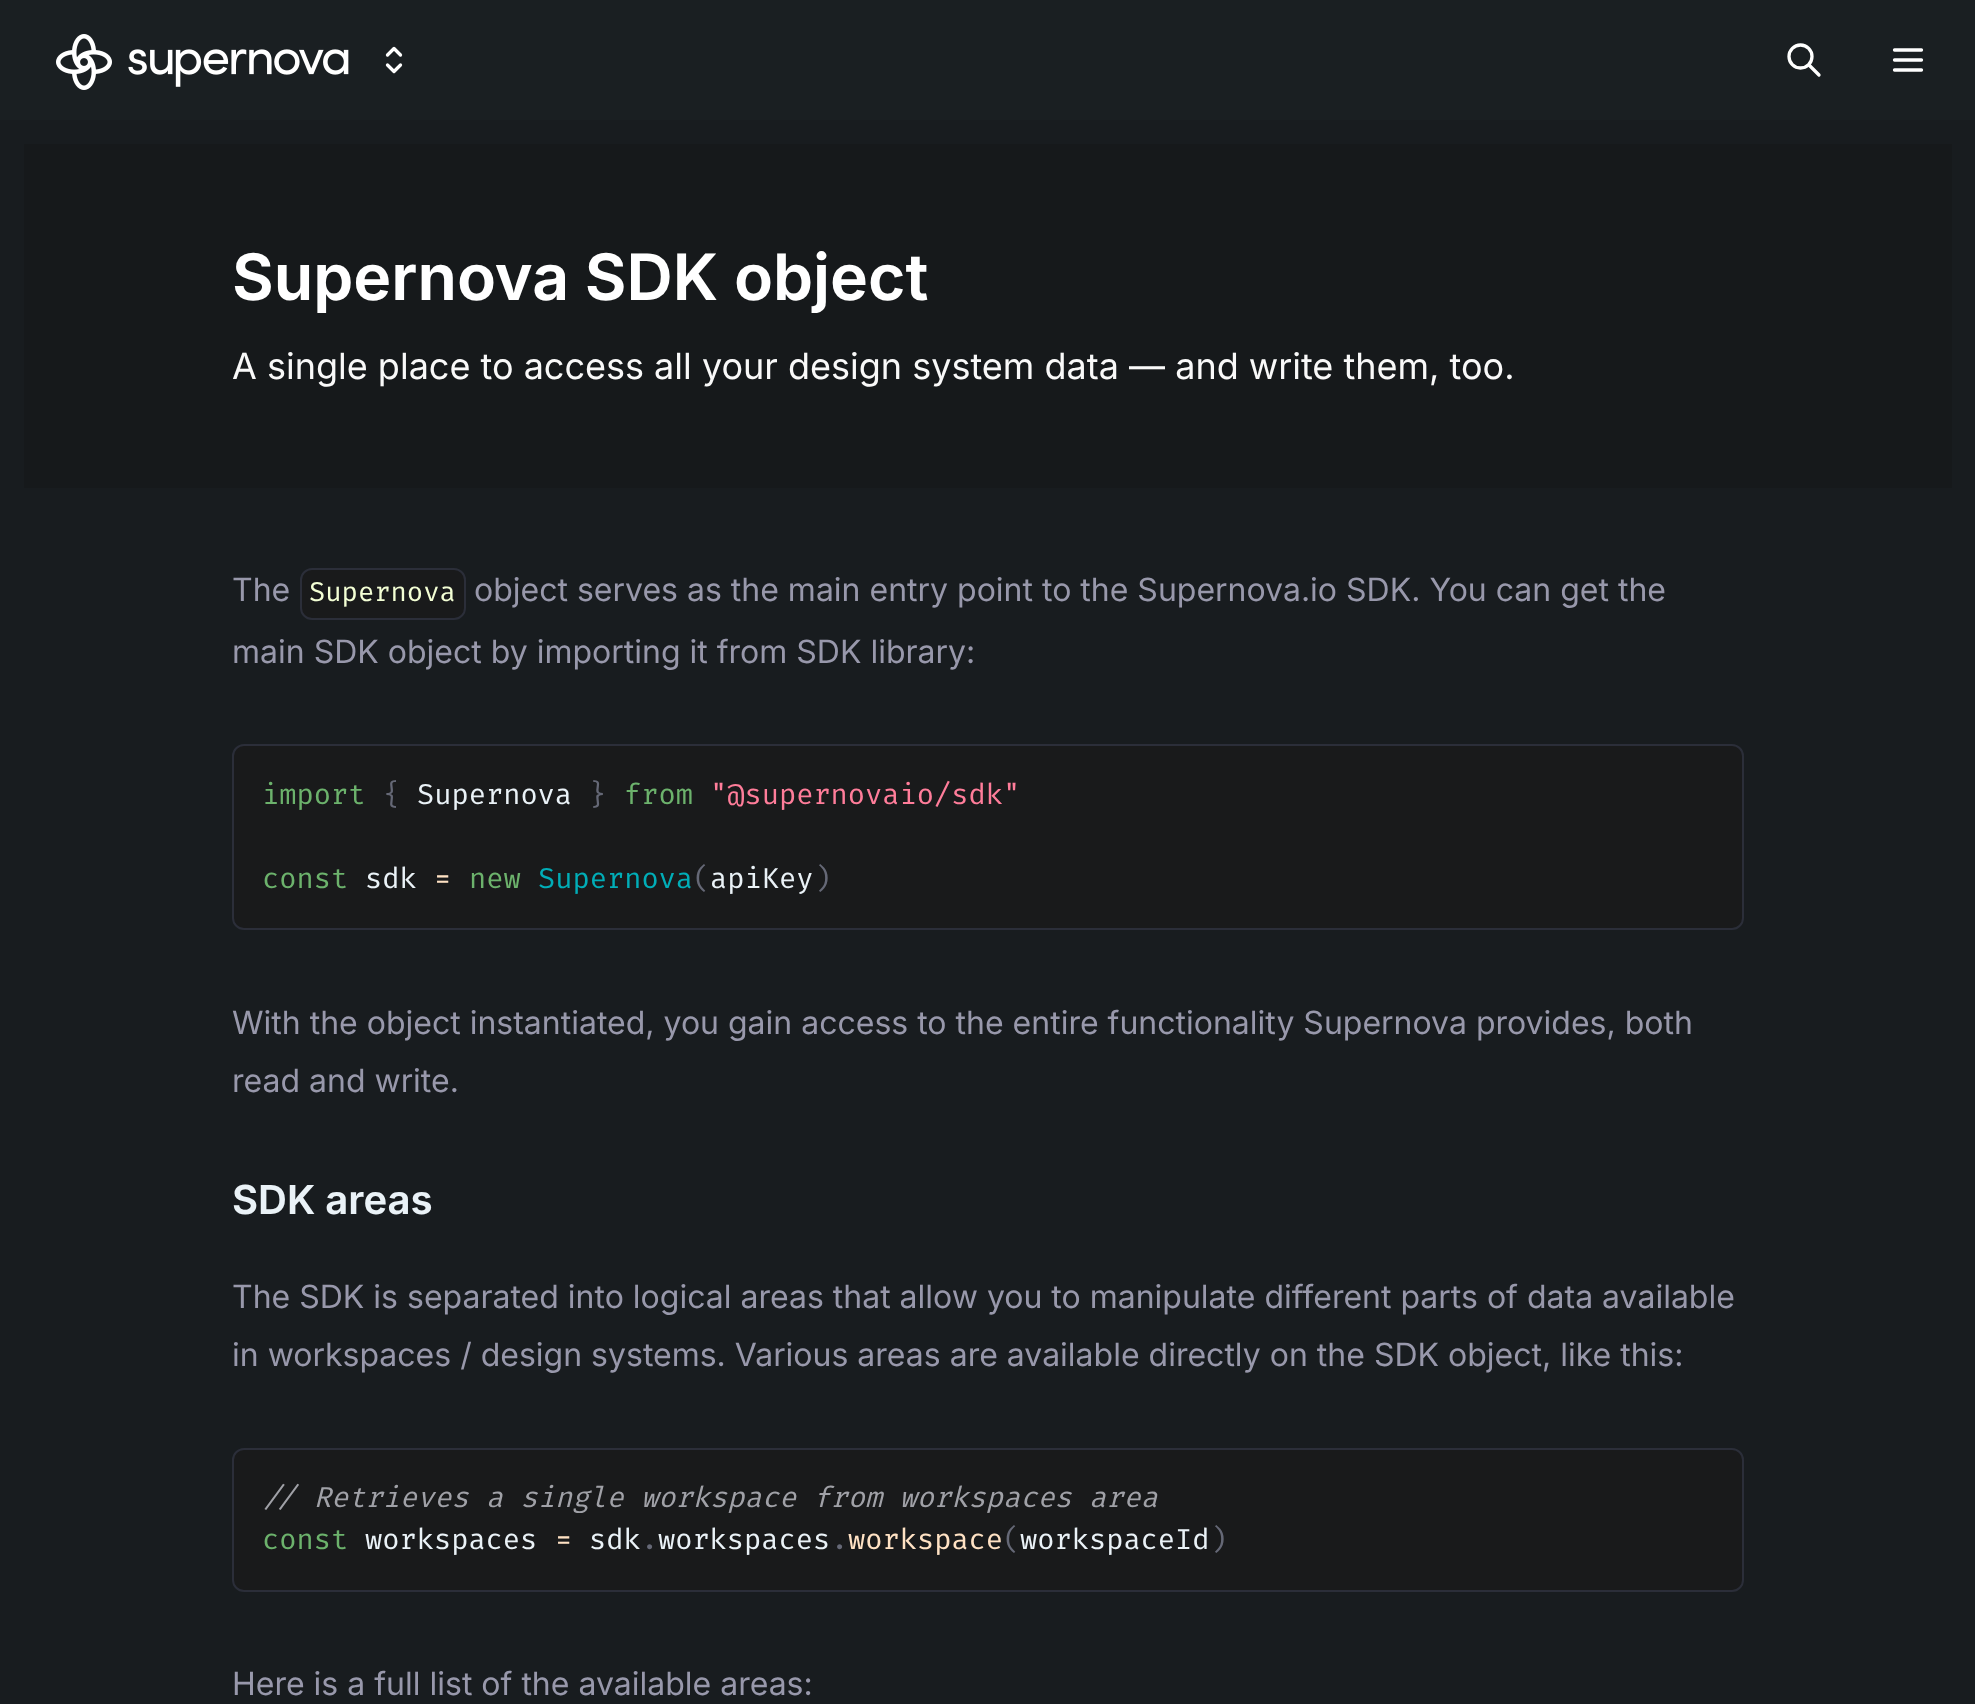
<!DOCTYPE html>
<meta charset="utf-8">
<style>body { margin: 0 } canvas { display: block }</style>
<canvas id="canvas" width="1975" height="1704"></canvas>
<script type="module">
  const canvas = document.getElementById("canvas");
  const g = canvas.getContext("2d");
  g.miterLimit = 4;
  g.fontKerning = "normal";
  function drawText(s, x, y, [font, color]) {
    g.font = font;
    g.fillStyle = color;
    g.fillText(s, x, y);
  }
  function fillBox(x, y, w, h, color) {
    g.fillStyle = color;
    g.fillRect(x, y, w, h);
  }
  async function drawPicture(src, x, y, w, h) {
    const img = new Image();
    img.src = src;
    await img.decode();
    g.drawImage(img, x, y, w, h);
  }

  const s1 = ["600 64px Inter", "#FFFFFF"];
  const s2 = ["36px Inter", "#F9F9F9"];
  const s3 = ["32px Inter", "#9898AB"];
  const s4 = ["26.5px Fira Code", "#F3FFD5"];
  const s5 = ["28px Fira Code", "#6CB26C"];
  const s6 = ["28px Fira Code", "#656876"];
  const s7 = ["28px Fira Code", "#EAF2F7"];
  const s8 = ["28px Fira Code", "#FF7D9A"];
  const s9 = ["28px Fira Code", "#FFE2C4"];
  const s10 = ["28px Fira Code", "#01ADB7"];
  const s11 = ["600 40px Inter", "#EAF2F7"];
  const s12 = ["italic 28px Fira Code", "#A0A1A7"];

  fillBox(0, 0, 1975, 1704, "#181C1F");
  fillBox(0, 0, 1975, 120, "#1A1F22");
  await drawPicture("pic1.png", 56, 34, 293, 56);
  g.beginPath();
  g.moveTo(387.5, 55);
  g.lineTo(394, 48.5);
  g.lineTo(400.5, 55);
  g.moveTo(400.5, 65);
  g.lineTo(394, 71.5);
  g.lineTo(387.5, 65);
  g.strokeStyle = "#FFFFFF";
  g.lineWidth = 3.3;
  g.lineCap = "round";
  g.lineJoin = "round";
  g.stroke();
  g.beginPath();
  g.arc(1800.5, 56.5, 11.5, 0, Math.PI * 2);
  g.stroke();
  g.beginPath();
  g.moveTo(1819, 75);
  g.lineTo(1809, 65);
  g.stroke();
  g.beginPath();
  g.moveTo(1894.5, 50);
  g.lineTo(1921.5, 50);
  g.moveTo(1894.5, 60);
  g.lineTo(1921.5, 60);
  g.moveTo(1894.5, 70);
  g.lineTo(1921.5, 70);
  g.stroke();
  fillBox(24, 144, 1928, 344, "#16191B");
  drawText("Supernova SDK object", 232, 300, s1);
  drawText("A single place to access all your design system data — and write them, too.", 232, 379, s2);
  drawText("The", 232, 601, s3);
  g.fillStyle = "#191A1B";
  g.beginPath();
  g.roundRect(301, 569, 164, 50, 11);
  g.fill();
  g.strokeStyle = "#2B2E39";
  g.lineWidth = 2;
  g.lineJoin = "miter";
  g.stroke();
  drawText("Supernova", 309, 601, s4);
  drawText("object serves as the main entry point to the Supernova.io SDK. You can get the", 474, 601, s3);
  drawText("main SDK object by importing it from SDK library:", 232, 663, s3);
  g.fillStyle = "#191A1B";
  g.beginPath();
  g.roundRect(233, 745, 1510, 184, 11);
  g.fill();
  g.stroke();
  drawText("import", 262, 804, s5);
  drawText("{", 383, 804, s6);
  drawText("Supernova", 417, 804, s7);
  drawText("}", 589, 804, s6);
  drawText("from", 624, 804, s5);
  drawText("\"@supernovaio/sdk\"", 710, 804, s8);
  drawText("const", 262, 888, s5);
  drawText("sdk", 365, 888, s7);
  drawText("=", 434, 888, s9);
  drawText("new", 469, 888, s5);
  drawText("Supernova", 538, 888, s10);
  drawText("(", 693, 888, s6);
  drawText("apiKey", 710, 888, s7);
  drawText(")", 814, 888, s6);
  drawText("With the object instantiated, you gain access to the entire functionality Supernova provides, both", 232, 1034, s3);
  drawText("read and write.", 232, 1092, s3);
  drawText("SDK areas", 232, 1214, s11);
  drawText("The SDK is separated into logical areas that allow you to manipulate different parts of data available", 232, 1308, s3);
  drawText("in workspaces / design systems. Various areas are available directly on the SDK object, like this:", 232, 1366, s3);
  g.fillStyle = "#191A1B";
  g.beginPath();
  g.roundRect(233, 1449, 1510, 142, 11);
  g.fill();
  g.stroke();
  drawText("// Retrieves a single workspace from workspaces area", 262, 1507, s12);
  drawText("const", 262, 1549, s5);
  drawText("workspaces", 365, 1549, s7);
  drawText("=", 555, 1549, s9);
  drawText("sdk workspaces", 589, 1549, s7);
  drawText("workspace", 848, 1549, s9);
  drawText("(", 1003, 1549, s6);
  drawText("workspaceId", 1020, 1549, s7);
  drawText(")", 1210, 1549, s6);
  drawText(".", 641, 1549, s6);
  drawText(".", 831, 1549, s6);
  drawText("Here is a full list of the available areas:", 232, 1695, s3);
</script>
